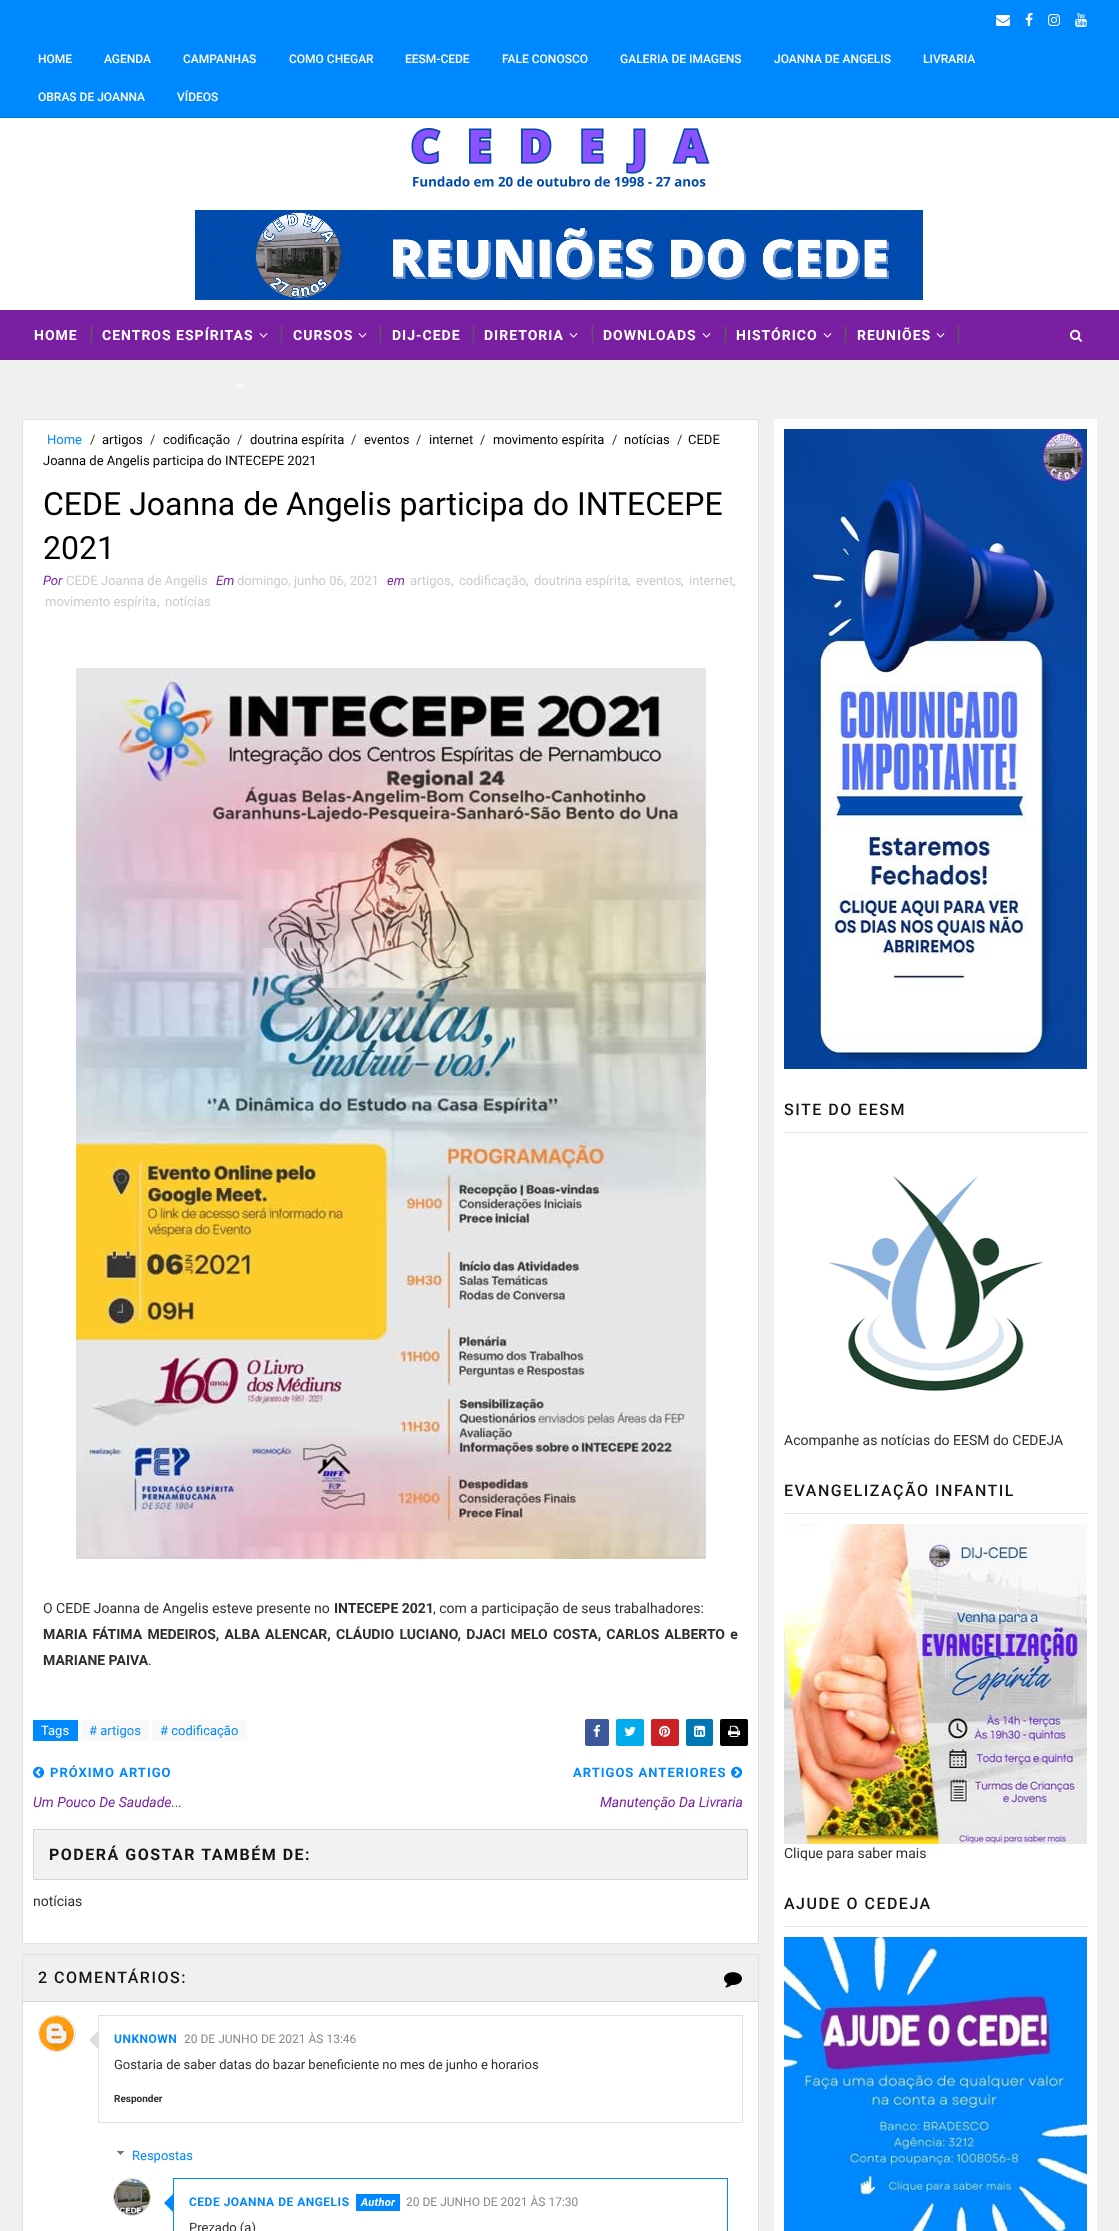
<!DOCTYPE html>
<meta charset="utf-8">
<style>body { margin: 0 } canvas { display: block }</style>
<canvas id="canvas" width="1119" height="2231"></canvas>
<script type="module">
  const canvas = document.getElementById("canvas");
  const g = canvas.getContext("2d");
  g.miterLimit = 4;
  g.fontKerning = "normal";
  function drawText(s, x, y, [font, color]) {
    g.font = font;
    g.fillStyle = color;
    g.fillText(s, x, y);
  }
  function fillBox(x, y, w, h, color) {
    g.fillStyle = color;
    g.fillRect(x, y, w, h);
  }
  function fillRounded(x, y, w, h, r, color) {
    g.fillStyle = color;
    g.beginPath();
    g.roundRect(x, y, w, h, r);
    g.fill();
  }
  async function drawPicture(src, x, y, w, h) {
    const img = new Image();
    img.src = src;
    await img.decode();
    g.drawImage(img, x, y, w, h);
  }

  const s1 = ["500 12px Roboto", "#FFFFFF"];
  const s2 = ["bold 14px Roboto", "#FFFFFF"];
  const s3 = ["20px Roboto", "#5C5C5C"];
  const s4 = ["13px Roboto", "#0088FF"];
  const s5 = ["13px Roboto", "#2E2E2E"];
  const s6 = ["13px Roboto", "#010101"];
  const s7 = ["32px Roboto", "#010101"];
  const s8 = ["italic 13px Roboto", "#7B1FA2"];
  const s9 = ["13px Roboto", "#CBCBCB"];
  const s10 = ["13px Roboto", "#BDBDBD"];
  const s11 = ["14px Roboto", "#2E2E2E"];
  const s12 = ["bold 14px Roboto", "#2E2E2E"];
  const s13 = ["13px Roboto", "#FFFFFF"];
  const s14 = ["bold 13px Roboto", "#0088FF"];
  const s15 = ["italic 14px Roboto", "#7B1FA2"];
  const s16 = ["bold 16px Roboto", "#151515"];
  const s17 = ["500 16px Roboto", "#151515"];
  const s18 = ["bold 12px Roboto", "#0088FF"];
  const s19 = ["12px Roboto", "#888888"];
  const s20 = ["bold 10px Roboto", "#2E2E2E"];
  const s21 = ["italic bold 11px Roboto", "#FFFFFF"];

  fillBox(0, 0, 1119, 2231, "#F0F0F0");
  fillBox(0, 0, 1119, 117, "#0088FF");
  fillBox(0, 117, 1119, 1, "#0078E0");
  await drawPicture("pic1.png", 996, 15, 14, 11);
  await drawPicture("pic2.png", 1025, 13, 8, 13);
  await drawPicture("pic3.png", 1048, 14, 12, 12);
  await drawPicture("pic4.png", 1075, 13, 12, 14);
  drawText("HOME", 38, 63, s1);
  drawText("AGENDA", 104, 63, s1);
  drawText("CAMPANHAS", 183, 63, s1);
  drawText("COMO CHEGAR", 289, 63, s1);
  drawText("EESM-CEDE", 405, 63, s1);
  drawText("FALE CONOSCO", 502, 63, s1);
  drawText("GALERIA DE IMAGENS", 620, 63, s1);
  drawText("JOANNA DE ANGELIS", 774, 63, s1);
  drawText("LIVRARIA", 923, 63, s1);
  drawText("OBRAS DE JOANNA", 38, 101, s1);
  drawText("VÍDEOS", 177, 101, s1);
  fillBox(0, 118, 1119, 192, "#FFFFFF");
  await drawPicture("pic5.png", 411, 128, 299, 59);
  await drawPicture("pic6.png", 195, 210, 728, 90);
  fillBox(0, 310, 1119, 50, "#7B1FA2");
  g.letterSpacing = "1px";
  drawText("HOME", 34, 340, s2);
  g.letterSpacing = "0px";
  drawText("|", 89, 340, s3);
  g.letterSpacing = "1px";
  drawText("CENTROS ESPÍRITAS", 102, 340, s2);
  await drawPicture("pic7.png", 259, 333, 9, 5);
  g.letterSpacing = "0px";
  drawText("|", 279, 340, s3);
  g.letterSpacing = "1px";
  drawText("CURSOS", 293, 340, s2);
  await drawPicture("pic7.png", 358, 333, 9, 5);
  g.letterSpacing = "0px";
  drawText("|", 378, 340, s3);
  g.letterSpacing = "1px";
  drawText("DIJ-CEDE", 392, 340, s2);
  g.letterSpacing = "0px";
  drawText("|", 471, 340, s3);
  g.letterSpacing = "1px";
  drawText("DIRETORIA", 484, 340, s2);
  await drawPicture("pic7.png", 569, 333, 9, 5);
  g.letterSpacing = "0px";
  drawText("|", 590, 340, s3);
  g.letterSpacing = "1px";
  drawText("DOWNLOADS", 603, 340, s2);
  await drawPicture("pic7.png", 702, 333, 9, 5);
  g.letterSpacing = "0px";
  drawText("|", 723, 340, s3);
  g.letterSpacing = "1px";
  drawText("HISTÓRICO", 736, 340, s2);
  await drawPicture("pic7.png", 823, 333, 9, 5);
  g.letterSpacing = "0px";
  drawText("|", 843, 340, s3);
  g.letterSpacing = "1px";
  drawText("REUNIÕES", 857, 340, s2);
  await drawPicture("pic7.png", 936, 333, 9, 5);
  g.letterSpacing = "0px";
  drawText("|", 956, 340, s3);
  await drawPicture("pic8.png", 236, 383, 7, 5);
  await drawPicture("pic9.png", 1070, 329, 12, 13);
  g.fillStyle = "#FFFFFF";
  g.beginPath();
  g.rect(22.5, 419.5, 736, 1524);
  g.fill();
  g.strokeStyle = "#E0E0E0";
  g.stroke();
  drawText("Home", 47, 444, s4);
  drawText("/", 90, 444, s5);
  drawText("artigos", 102, 444, s6);
  drawText("/", 150, 444, s5);
  drawText("codificação", 163, 444, s6);
  drawText("/", 237, 444, s5);
  drawText("doutrina espírita", 250, 444, s6);
  drawText("/", 351, 444, s5);
  drawText("eventos", 364, 444, s6);
  drawText("/", 416, 444, s5);
  drawText("internet", 429, 444, s6);
  drawText("/", 480, 444, s5);
  drawText("movimento espírita", 493, 444, s6);
  drawText("/", 612, 444, s5);
  drawText("notícias", 624, 444, s6);
  drawText("/", 677, 444, s5);
  drawText("CEDE", 688, 444, s6);
  drawText("Joanna de Angelis participa do INTECEPE 2021", 43, 465, s6);
  drawText("CEDE Joanna de Angelis participa do INTECEPE", 43, 515, s7);
  drawText("2021", 43, 559, s7);
  drawText("Por", 43, 585, s8);
  drawText("CEDE Joanna de Angelis", 66, 585, s9);
  drawText("Em", 216, 585, s8);
  drawText("domingo, junho 06, 2021", 237, 585, s9);
  drawText("em", 387, 585, s8);
  drawText("artigos", 410, 585, s9);
  drawText(",", 451, 585, s10);
  drawText("codificação", 459, 585, s9);
  drawText(",", 526, 585, s10);
  drawText("doutrina espírita", 534, 585, s9);
  drawText(",", 628, 585, s10);
  drawText("eventos", 636, 585, s9);
  drawText(",", 681, 585, s10);
  drawText("internet", 689, 585, s9);
  drawText(",", 733, 585, s10);
  drawText("movimento espírita", 45, 606, s9);
  drawText(",", 157, 606, s10);
  drawText("notícias", 165, 606, s9);
  await drawPicture("pic10.png", 76, 668, 630, 891);
  drawText("O CEDE Joanna de Angelis esteve presente no", 43, 1613, s11);
  drawText("INTECEPE 2021", 334, 1613, s12);
  drawText(", com a participação de seus trabalhadores:", 433, 1613, s11);
  g.wordSpacing = "1.75px";
  drawText("MARIA FÁTIMA MEDEIROS, ALBA ALENCAR, CLÁUDIO LUCIANO, DJACI MELO COSTA, CARLOS ALBERTO e", 43, 1639, s12);
  g.wordSpacing = "0px";
  drawText("MARIANE PAIVA", 43, 1665, s12);
  drawText(".", 148, 1665, s11);
  fillBox(33, 1720, 45, 21, "#0088FF");
  drawText("Tags", 41, 1735, s13);
  fillBox(81, 1720, 68, 21, "#F8F8F8");
  drawText("# artigos", 89, 1735, s4);
  fillBox(152, 1720, 95, 21, "#F8F8F8");
  drawText("# codificação", 160, 1735, s4);
  fillRounded(585, 1719, 24, 27, 2, "#3B5998");
  await drawPicture("pic11.png", 593, 1724, 7, 13);
  fillRounded(616, 1719, 28, 27, 2, "#00ACEE");
  await drawPicture("pic12.png", 624, 1726, 12, 10);
  fillRounded(651, 1719, 28, 27, 2, "#CA2127");
  await drawPicture("pic13.png", 659, 1725, 12, 12);
  fillRounded(686, 1719, 27, 27, 2, "#0077B5");
  await drawPicture("pic14.png", 694, 1725, 12, 12);
  fillRounded(720, 1719, 28, 27, 2, "#010101");
  await drawPicture("pic15.png", 728, 1725, 13, 12);
  await drawPicture("pic16.png", 33, 1766, 12, 12);
  g.letterSpacing = "1px";
  drawText("PRÓXIMO ARTIGO", 50, 1777, s14);
  g.letterSpacing = "0px";
  drawText("Um Pouco De Saudade...", 33, 1807, s15);
  g.letterSpacing = "1px";
  drawText("ARTIGOS ANTERIORES", 573, 1777, s14);
  await drawPicture("pic17.png", 731, 1766, 12, 12);
  g.letterSpacing = "0px";
  drawText("Manutenção Da Livraria", 600, 1807, s15);
  g.fillStyle = "#F2F2F2";
  g.beginPath();
  g.rect(33.5, 1829.5, 714, 50);
  g.fill();
  g.strokeStyle = "#D5D5D5";
  g.stroke();
  g.letterSpacing = "1.5px";
  drawText("PODERÁ GOSTAR TAMBÉM DE:", 49, 1860, s16);
  g.letterSpacing = "0px";
  drawText("notícias", 33, 1906, s11);
  fillBox(23, 2002, 735, 229, "#FFFFFF");
  g.strokeStyle = "#E0E0E0";
  g.strokeRect(22.5, 1954.5, 736, 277);
  fillBox(23, 2001, 735, 1, "#D5D5D5");
  g.letterSpacing = "1.5px";
  drawText("2 COMENTÁRIOS:", 38, 1983, s17);
  await drawPicture("pic18.png", 724, 1972, 18, 16);
  g.beginPath();
  g.roundRect(38.5, 2015.5, 37, 36, 18);
  g.strokeStyle = "#DDDDDD";
  g.stroke();
  await drawPicture("pic19.png", 39, 2016, 35, 35);
  g.strokeStyle = "#E0E0E0";
  g.strokeRect(98.5, 2015.5, 644, 107);
  g.fillStyle = "#DDDDDD";
  g.beginPath();
  g.moveTo(99, 2030);
  g.lineTo(99, 2050);
  g.lineTo(89, 2040);
  g.closePath();
  g.fill();
  g.letterSpacing = "0.5px";
  drawText("UNKNOWN", 114, 2043, s18);
  g.letterSpacing = "0px";
  drawText("20 DE JUNHO DE 2021 ÀS 13:46", 184, 2043, s19);
  drawText("Gostaria de saber datas do bazar beneficiente no mes de junho e horarios", 114, 2069, s5);
  drawText("Responder", 114, 2102, s20);
  await drawPicture("pic20.png", 117, 2151, 7, 4);
  drawText("Respostas", 132, 2160, s4);
  g.beginPath();
  g.arc(132, 2197, 18.5, 0, Math.PI * 2);
  g.strokeStyle = "#DDDDDD";
  g.stroke();
  await drawPicture("pic21.png", 114, 2179, 36, 36);
  g.strokeStyle = "#0088FF";
  g.strokeRect(173.5, 2178.5, 554, 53);
  g.beginPath();
  g.moveTo(174, 2193);
  g.lineTo(174, 2213);
  g.lineTo(164, 2203);
  g.closePath();
  g.fill();
  g.letterSpacing = "0.5px";
  drawText("CEDE JOANNA DE ANGELIS", 189, 2206, s18);
  fillBox(356, 2194, 44, 17, "#0088FF");
  g.letterSpacing = "0.25px";
  drawText("Author", 361, 2206, s21);
  g.letterSpacing = "0px";
  drawText("20 DE JUNHO DE 2021 ÀS 17:30", 406, 2206, s19);
  drawText("Prezado (a)", 189, 2232, s5);
  fillBox(774, 419, 323, 1812, "#FFFFFF");
  await drawPicture("pic22.png", 784, 429, 303, 640);
  fillBox(784, 1132, 303, 1, "#E0E0E0");
  g.letterSpacing = "1.5px";
  drawText("SITE DO EESM", 784, 1115, s17);
  await drawPicture("pic23.png", 828, 1176, 216, 215);
  g.letterSpacing = "0px";
  drawText("Acompanhe as notícias do EESM do CEDEJA", 784, 1445, s11);
  fillBox(784, 1513, 303, 1, "#E0E0E0");
  g.letterSpacing = "1.5px";
  drawText("EVANGELIZAÇÃO INFANTIL", 784, 1496, s17);
  await drawPicture("pic24.png", 784, 1524, 303, 320);
  g.letterSpacing = "0px";
  drawText("Clique para saber mais", 784, 1858, s11);
  fillBox(784, 1926, 303, 1, "#E0E0E0");
  g.letterSpacing = "1.5px";
  drawText("AJUDE O CEDEJA", 784, 1909, s17);
  await drawPicture("pic25.png", 784, 1937, 303, 294);
</script>
